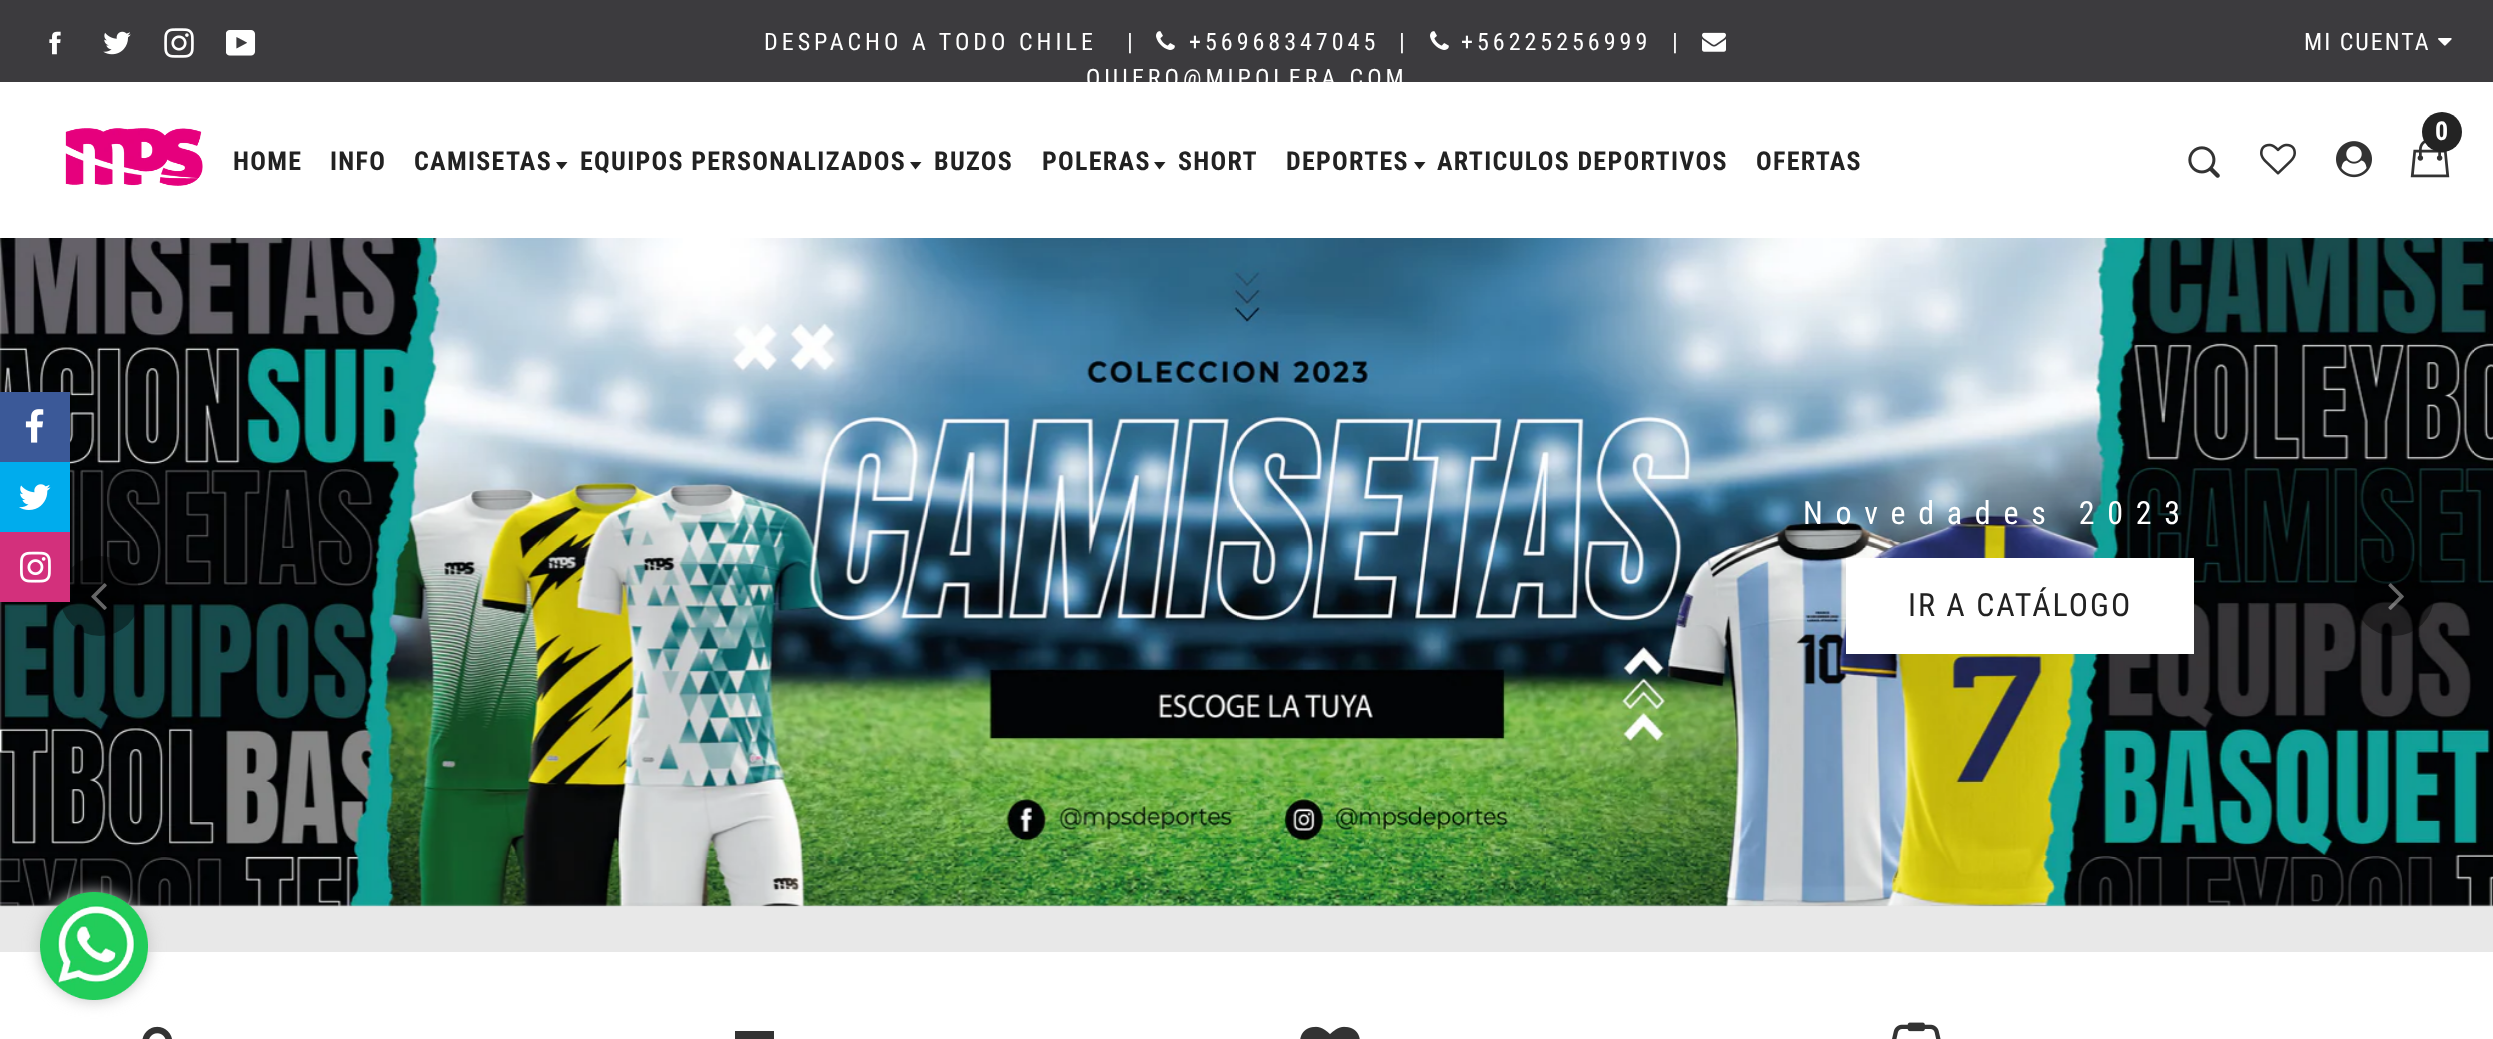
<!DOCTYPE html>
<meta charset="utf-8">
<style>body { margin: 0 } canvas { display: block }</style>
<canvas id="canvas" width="2493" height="1039"></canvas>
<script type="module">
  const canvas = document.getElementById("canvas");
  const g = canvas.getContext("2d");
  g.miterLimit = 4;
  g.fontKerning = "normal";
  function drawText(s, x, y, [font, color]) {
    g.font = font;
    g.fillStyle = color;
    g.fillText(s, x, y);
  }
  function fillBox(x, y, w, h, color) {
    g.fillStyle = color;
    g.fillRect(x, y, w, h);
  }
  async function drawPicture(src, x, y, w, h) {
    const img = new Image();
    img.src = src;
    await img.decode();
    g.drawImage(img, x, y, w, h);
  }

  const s1 = ["24px Roboto Condensed", "#FFFFFF"];
  const s2 = ["bold 26px Roboto Condensed", "#222222"];
  const s3 = ["bold 26px Roboto Condensed", "#FFFFFF"];
  const s4 = ["32px Roboto Condensed", "#FFFFFF"];
  const s5 = ["32px Roboto Condensed", "#222222"];

  fillBox(0, 0, 2493, 1039, "#FFFFFF");
  fillBox(0, 0, 2493, 82, "#3C3B3E");
  await drawPicture("pic1.png", 49, 31, 12, 24);
  await drawPicture("pic2.png", 103, 31, 28, 24);
  await drawPicture("pic3.png", 164, 28, 30, 30);
  await drawPicture("pic4.png", 226, 30, 30, 26);
  g.letterSpacing = "4px";
  drawText("DESPACHO A TODO CHILE", 764, 50, s1);
  drawText("|", 1672, 50, s1);
  await drawPicture("pic5.png", 1702, 32, 24, 20);
  drawText("QUIERO@MIPOLERA.COM", 1086, 86, s1);
  drawText("|", 1127, 50, s1);
  await drawPicture("pic6.png", 1156, 31, 19, 19);
  drawText("+56968347045", 1189, 50, s1);
  drawText("|", 1399, 50, s1);
  await drawPicture("pic6.png", 1430, 31, 19, 19);
  drawText("+56225256999", 1461, 50, s1);
  g.letterSpacing = "2px";
  drawText("MI CUENTA", 2304, 50, s1);
  await drawPicture("pic7.png", 2438, 38, 14, 8);
  await drawPicture("pic8.png", 65, 128, 138, 58);
  g.letterSpacing = "1.3px";
  drawText("HOME", 233, 170, s2);
  drawText("INFO", 330, 170, s2);
  drawText("CAMISETAS", 414, 170, s2);
  g.beginPath();
  g.moveTo(561.5, 169.5);
  g.lineTo(567.5, 162);
  g.lineTo(556, 162);
  g.closePath();
  g.fill("evenodd");
  drawText("EQUIPOS PERSONALIZADOS", 580, 170, s2);
  g.beginPath();
  g.moveTo(915.5, 169.5);
  g.lineTo(921.5, 162);
  g.lineTo(910, 162);
  g.closePath();
  g.fill("evenodd");
  drawText("BUZOS", 934, 170, s2);
  drawText("POLERAS", 1042, 170, s2);
  g.beginPath();
  g.moveTo(1159.5, 169.5);
  g.lineTo(1165.5, 162);
  g.lineTo(1154, 162);
  g.closePath();
  g.fill("evenodd");
  drawText("SHORT", 1178, 170, s2);
  drawText("DEPORTES", 1286, 170, s2);
  g.beginPath();
  g.moveTo(1419.5, 169.5);
  g.lineTo(1425.5, 162);
  g.lineTo(1414, 162);
  g.closePath();
  g.fill("evenodd");
  drawText("ARTICULOS DEPORTIVOS", 1437, 170, s2);
  drawText("OFERTAS", 1756, 170, s2);
  await drawPicture("pic9.png", 2410, 140, 40, 38);
  g.fillStyle = "#232323";
  g.beginPath();
  g.arc(2442, 132, 20, 0, Math.PI * 2);
  g.fill();
  g.letterSpacing = "0px";
  drawText("0", 2435, 140, s3);
  await drawPicture("pic10.png", 2188, 146, 32, 32);
  await drawPicture("pic11.png", 2260, 143, 36, 32);
  await drawPicture("pic12.png", 2336, 141, 36, 37);
  fillBox(0, 238, 2493, 714, "#E8E8E8");
  await drawPicture("pic17.png", 0, 238, 2493, 669);
  fillBox(0, 392, 70, 70, "#3B5998");
  await drawPicture("pic13.png", 25, 409, 19, 34);
  fillBox(0, 462, 70, 70, "#00ACED");
  await drawPicture("pic14.png", 19, 484, 32, 26);
  g.fillStyle = "rgba(0, 0, 0, 0.4)";
  g.beginPath();
  g.arc(100, 596, 40, 0, Math.PI * 2);
  g.fill();
  fillBox(0, 532, 70, 70, "#D3307C");
  await drawPicture("pic15.png", 20, 551, 31, 32);
  await drawPicture("pic16.png", 91, 583, 16, 27);
  g.letterSpacing = "12.75px";
  drawText("Novedades 2023", 1803, 524, s4);
  fillBox(1846, 558, 348, 96, "#FFFFFF");
  g.letterSpacing = "2px";
  drawText("IR A CATÁLOGO", 1908, 616, s5);
  g.fillStyle = "rgba(0, 0, 0, 0.4)";
  g.beginPath();
  g.arc(2394, 596, 40, 0, Math.PI * 2);
  g.fill();
  await drawPicture("pic18.png", 2388, 583, 16, 27);
  await drawPicture("pic19.png", 142, 1026, 30, 13);
  fillBox(735, 1031, 39, 8, "#333333");
  await drawPicture("pic20.png", 1300, 1026, 60, 13);
  await drawPicture("pic21.png", 1892, 1022, 49, 17);
  g.fillStyle = "#C2C2C2";
  g.filter = "blur(8px)";
  g.beginPath();
  g.roundRect(40, 892, 108, 108, 54);
  g.fill();
  g.filter = "none";
  await drawPicture("pic22.png", 40, 892, 108, 108);
</script>
